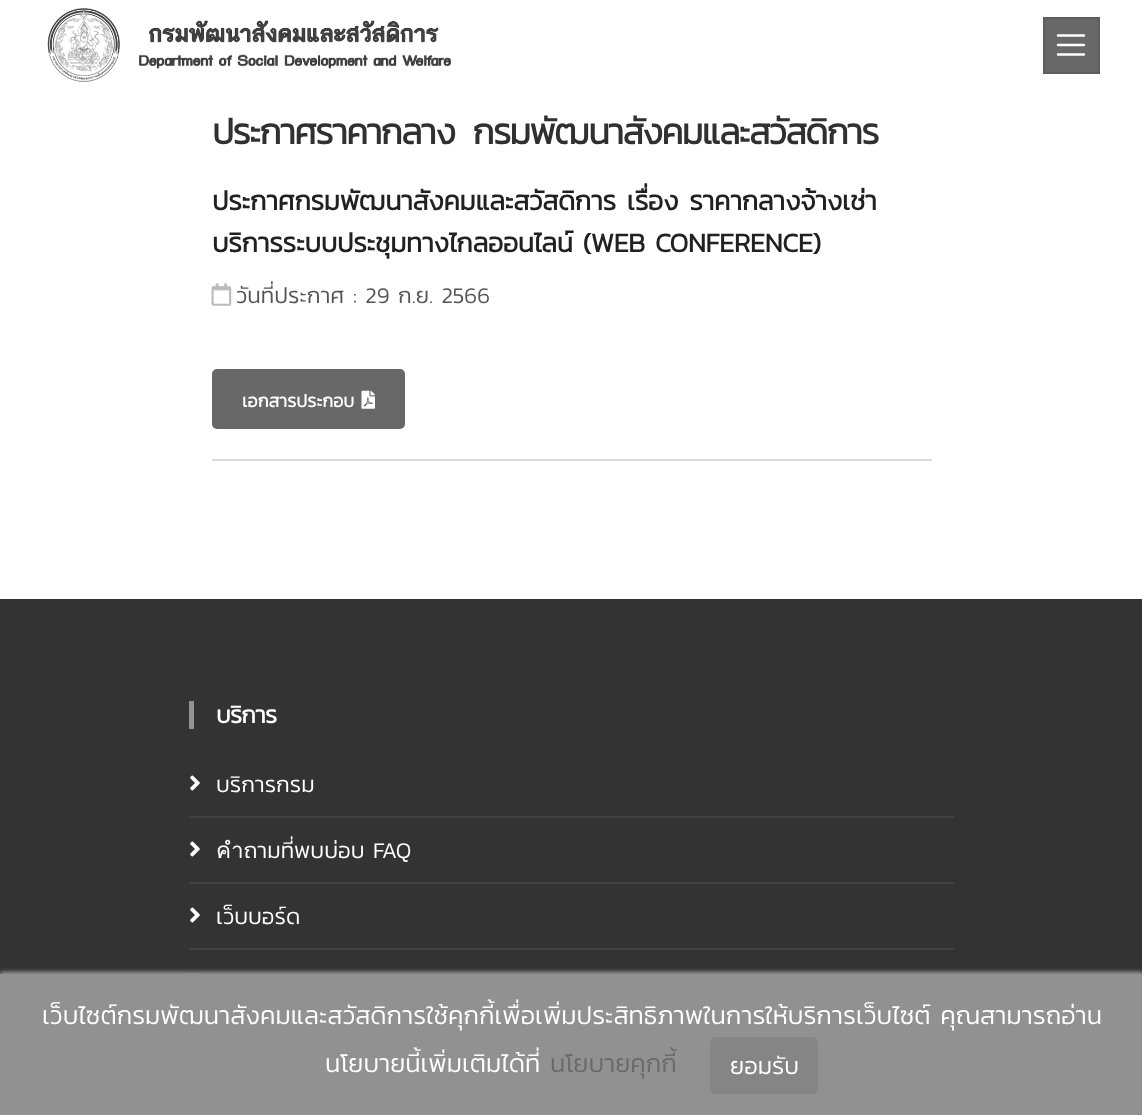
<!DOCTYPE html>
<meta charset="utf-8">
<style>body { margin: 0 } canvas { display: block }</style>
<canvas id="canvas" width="1142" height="1115"></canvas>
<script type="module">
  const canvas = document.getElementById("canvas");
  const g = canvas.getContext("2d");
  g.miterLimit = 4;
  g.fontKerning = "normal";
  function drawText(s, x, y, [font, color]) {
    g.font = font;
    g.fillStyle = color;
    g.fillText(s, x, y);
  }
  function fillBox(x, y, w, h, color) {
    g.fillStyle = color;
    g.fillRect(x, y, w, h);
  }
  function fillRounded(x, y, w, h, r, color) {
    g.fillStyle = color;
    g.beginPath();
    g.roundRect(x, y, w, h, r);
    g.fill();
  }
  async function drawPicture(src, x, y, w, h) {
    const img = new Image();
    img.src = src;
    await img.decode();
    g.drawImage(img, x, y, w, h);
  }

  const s1 = ["bold 36px Kanit", "#303030"];
  const s2 = ["bold 27px Kanit", "#212121"];
  const s3 = ["300 22.5px Kanit", "#555555"];
  const s4 = ["bold 18px Kanit", "#FFFFFF"];
  const s5 = ["bold 24px Kanit", "#FFFFFF"];
  const s6 = ["300 22.5px Kanit", "#FFFFFF"];
  const s7 = ["300 25.5px Kanit", "#FFFFFF"];
  const s8 = ["300 25.5px Kanit", "#6A6A6A"];
  const s9 = ["300 24px Kanit", "#FFFFFF"];

  fillBox(0, 0, 1142, 1115, "#FFFFFF");
  await drawPicture("pic1.png", 47, 8, 404, 74);
  g.fillStyle = "#686868";
  g.beginPath();
  g.rect(1044, 18, 55, 55);
  g.fill();
  g.strokeStyle = "#5E5E5E";
  g.lineWidth = 2;
  g.stroke();
  g.beginPath();
  g.moveTo(1058, 35.5);
  g.lineTo(1084, 35.5);
  g.moveTo(1058, 45);
  g.lineTo(1084, 45);
  g.moveTo(1058, 54.5);
  g.lineTo(1084, 54.5);
  g.strokeStyle = "#FFFFFF";
  g.lineWidth = 2.4;
  g.lineCap = "round";
  g.stroke();
  g.letterSpacing = "-1.5px";
  g.wordSpacing = "6px";
  drawText("ประกาศราคากลาง กรมพัฒนาสังคมและสวัสดิการ", 212, 144, s1);
  fillBox(212, 459, 720, 2, "#DADADA");
  g.letterSpacing = "-0.3px";
  g.wordSpacing = "1px";
  drawText("ประกาศกรมพัฒนาสังคมและสวัสดิการ เรื่อง ราคากลางจ้างเช่า", 212, 210, s2);
  g.wordSpacing = "0px";
  drawText("บริการระบบประชุมทางไกลออนไลน์ (WEB CONFERENCE)", 212, 252, s2);
  await drawPicture("pic2.png", 211, 283, 21, 23);
  g.letterSpacing = "0px";
  drawText("วันที่ประกาศ : 29 ก.ย. 2566", 236, 303, s3);
  fillRounded(212, 369, 193, 60, 5, "#686868");
  drawText("เอกสารประกอบ", 242, 407, s4);
  await drawPicture("pic3.png", 361, 390, 14, 19);
  fillBox(0, 599, 1142, 375, "#333333");
  fillBox(189, 701, 5, 28, "#939393");
  g.letterSpacing = "-0.75px";
  drawText("บริการ", 216, 723, s5);
  fillBox(189, 816, 765, 2, "#414141");
  await drawPicture("pic4.png", 190, 775, 10, 16);
  g.letterSpacing = "0px";
  drawText("บริการกรม", 216, 792, s6);
  fillBox(189, 882, 765, 2, "#414141");
  await drawPicture("pic4.png", 190, 841, 10, 16);
  drawText("คำถามที่พบบ่อบ FAQ", 216, 858, s6);
  fillBox(189, 948, 765, 2, "#414141");
  await drawPicture("pic4.png", 190, 907, 10, 16);
  drawText("เว็บบอร์ด", 216, 924, s6);
  await drawPicture("pic5.png", 191, 973, 3, 1);
  g.fillStyle = "#9F9F9F";
  g.filter = "blur(2px)";
  g.beginPath();
  g.rect(0, 972, 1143, 143);
  g.fill();
  g.filter = "none";
  fillBox(0, 974, 1142, 141, "#919191");
  drawText("เว็บไซต์กรมพัฒนาสังคมและสวัสดิการใช้คุกกี้เพื่อเพิ่มประสิทธิภาพในการให้บริการเว็บไซต์ คุณสามารถอ่าน", 42, 1024, s7);
  drawText("นโยบายนี้เพิ่มเติมได้ที่", 325, 1072, s7);
  drawText("นโยบายคุกกี้", 550, 1072, s8);
  g.fillStyle = "#858585";
  g.beginPath();
  g.roundRect(711, 1038, 106, 55, 5);
  g.fill();
  g.strokeStyle = "#858585";
  g.lineWidth = 2;
  g.stroke();
  drawText("ยอมรับ", 730, 1074, s9);
</script>
